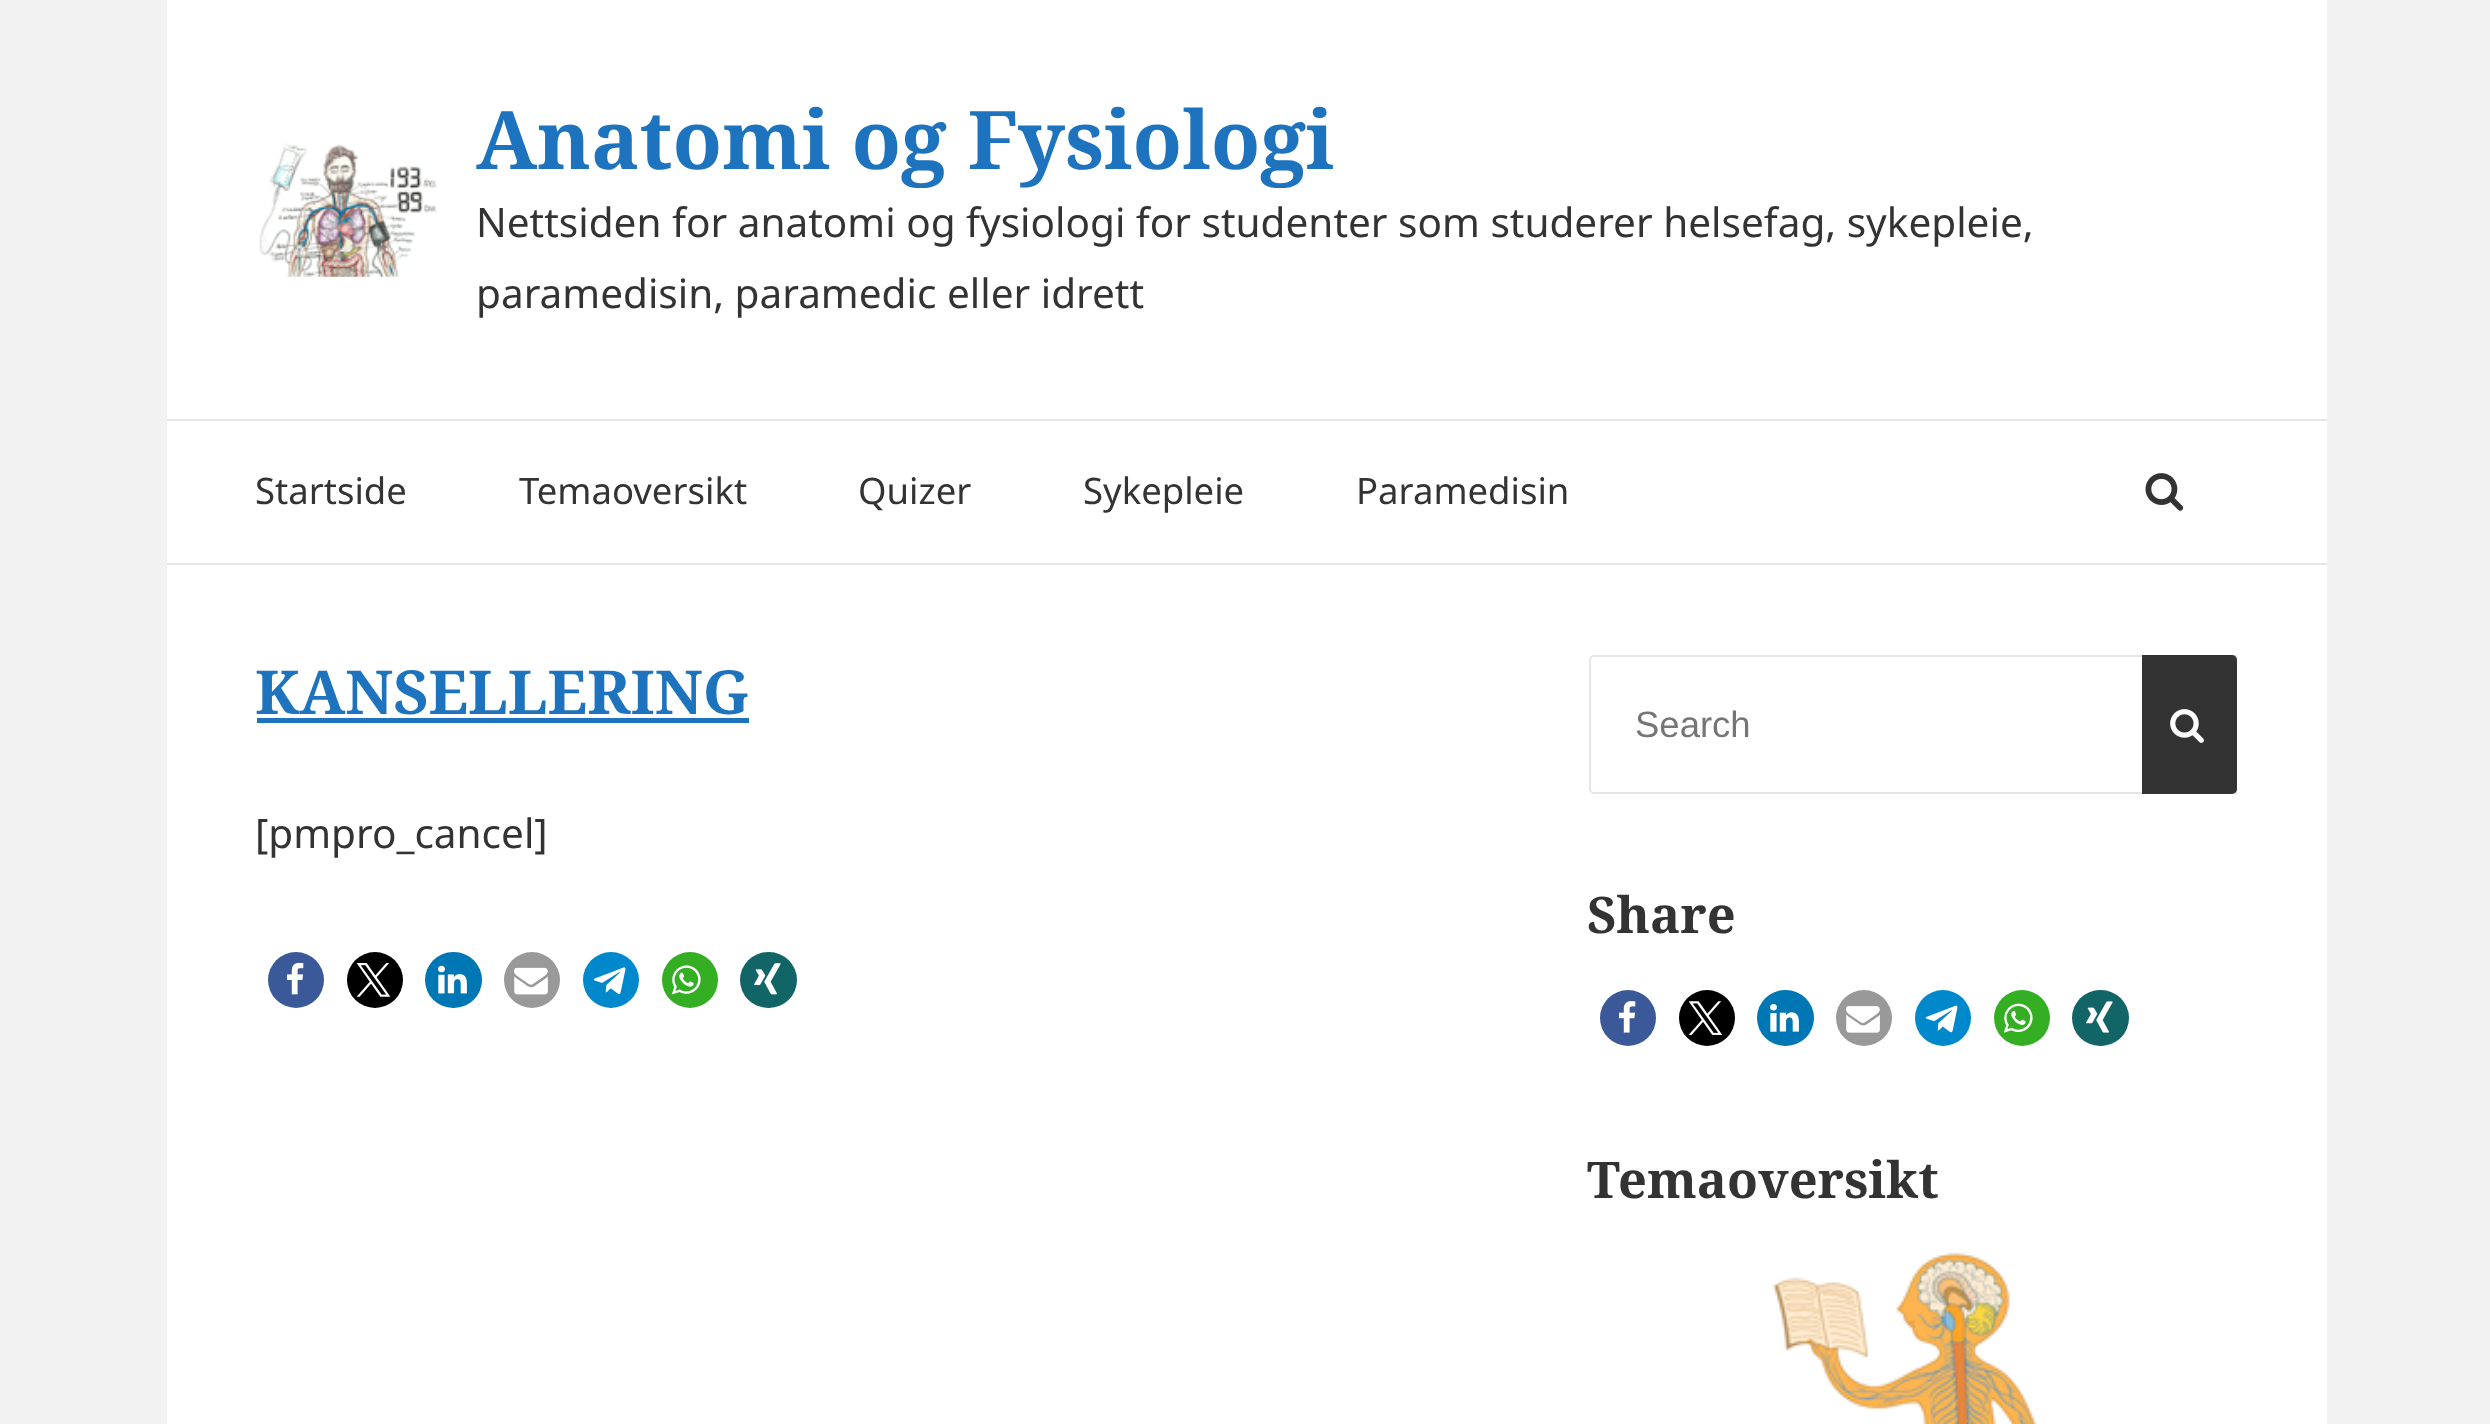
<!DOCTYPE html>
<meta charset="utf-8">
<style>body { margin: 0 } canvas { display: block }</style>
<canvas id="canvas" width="2490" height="1424"></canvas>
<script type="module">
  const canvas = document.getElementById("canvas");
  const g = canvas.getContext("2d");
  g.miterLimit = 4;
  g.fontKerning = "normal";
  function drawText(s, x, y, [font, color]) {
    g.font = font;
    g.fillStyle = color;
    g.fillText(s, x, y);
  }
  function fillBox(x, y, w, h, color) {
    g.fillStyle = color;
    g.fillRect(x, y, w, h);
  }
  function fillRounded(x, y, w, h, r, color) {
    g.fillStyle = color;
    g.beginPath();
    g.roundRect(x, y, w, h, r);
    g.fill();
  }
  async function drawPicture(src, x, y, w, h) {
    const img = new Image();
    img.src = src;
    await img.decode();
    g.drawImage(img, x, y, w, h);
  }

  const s1 = ["bold 81px Noto Serif", "#1E73BE"];
  const s2 = ["40.5px Noto Sans", "#333333"];
  const s3 = ["36.5px Noto Sans", "#333333"];
  const s4 = ["bold 60.75px Noto Serif", "#1E73BE"];
  const s5 = ["36.5px Liberation Sans", "#757575"];
  const s6 = ["bold 50.5px Noto Serif", "#333333"];

  fillBox(0, 0, 2490, 1424, "#F2F2F2");
  fillBox(167, 0, 2160, 563, "#FFFFFF");
  fillBox(167, 563, 2160, 2, "#E6E6E6");
  await drawPicture("pic1.png", 259, 143, 178, 134);
  drawText("Anatomi og Fysiologi", 476, 169, s1);
  drawText("Nettsiden for anatomi og fysiologi for studenter som studerer helsefag, sykepleie,", 476, 237, s2);
  drawText("paramedisin, paramedic eller idrett", 476, 308, s2);
  fillBox(167, 419, 2160, 2, "#E6E6E6");
  drawText("Startside", 255, 504, s3);
  drawText("Temaoversikt", 519, 504, s3);
  drawText("Quizer", 858, 504, s3);
  drawText("Sykepleie", 1083, 504, s3);
  drawText("Paramedisin", 1356, 504, s3);
  await drawPicture("pic2.png", 2145, 473, 39, 38);
  fillBox(167, 565, 2160, 859, "#FFFFFF");
  drawText("KANSELLERING", 255, 714, s4);
  fillBox(257, 718, 492, 5, "#1E73BE");
  drawText("[pmpro_cancel]", 255, 848, s2);
  g.fillStyle = "#3B5998";
  g.beginPath();
  g.arc(296, 980, 28, 0, Math.PI * 2);
  g.fill();
  await drawPicture("pic3.png", 287, 962, 17, 33);
  g.fillStyle = "#000000";
  g.beginPath();
  g.arc(375, 980, 28, 0, Math.PI * 2);
  g.fill();
  await drawPicture("pic4.png", 356, 963, 35, 34);
  fillRounded(425, 952, 57, 56, 28, "#0077B5");
  await drawPicture("pic5.png", 438, 965, 29, 29);
  g.fillStyle = "#999999";
  g.beginPath();
  g.arc(532, 980, 28, 0, Math.PI * 2);
  g.fill();
  await drawPicture("pic6.png", 514, 967, 34, 28);
  g.fillStyle = "#0088CC";
  g.beginPath();
  g.arc(611, 980, 28, 0, Math.PI * 2);
  g.fill();
  await drawPicture("pic7.png", 593, 967, 33, 27);
  g.fillStyle = "#34AF23";
  g.beginPath();
  g.arc(690, 980, 28, 0, Math.PI * 2);
  g.fill();
  await drawPicture("pic8.png", 671, 965, 30, 30);
  fillRounded(740, 952, 57, 56, 28, "#126567");
  await drawPicture("pic9.png", 754, 963, 27, 32);
  g.beginPath();
  g.roundRect(1590, 656, 646, 137, [4, 0, 0, 4]);
  g.strokeStyle = "#E6E6E6";
  g.lineWidth = 2;
  g.stroke();
  drawText("Search", 1635, 737, s5);
  g.fillStyle = "#333333";
  g.beginPath();
  g.roundRect(2142, 655, 95, 139, [0, 5, 5, 0]);
  g.fill();
  await drawPicture("pic10.png", 2170, 709, 34, 34);
  drawText("Share", 1587, 933, s6);
  g.fillStyle = "#3B5998";
  g.beginPath();
  g.arc(1628, 1018, 28, 0, Math.PI * 2);
  g.fill();
  await drawPicture("pic11.png", 1619, 1001, 17, 32);
  g.fillStyle = "#000000";
  g.beginPath();
  g.arc(1707, 1018, 28, 0, Math.PI * 2);
  g.fill();
  await drawPicture("pic12.png", 1688, 1001, 35, 34);
  fillRounded(1757, 990, 57, 56, 28, "#0077B5");
  await drawPicture("pic13.png", 1770, 1004, 29, 28);
  g.fillStyle = "#999999";
  g.beginPath();
  g.arc(1864, 1018, 28, 0, Math.PI * 2);
  g.fill();
  await drawPicture("pic14.png", 1845, 1006, 35, 27);
  g.fillStyle = "#0088CC";
  g.beginPath();
  g.arc(1943, 1018, 28, 0, Math.PI * 2);
  g.fill();
  await drawPicture("pic15.png", 1925, 1005, 33, 28);
  g.fillStyle = "#34AF23";
  g.beginPath();
  g.arc(2022, 1018, 28, 0, Math.PI * 2);
  g.fill();
  await drawPicture("pic16.png", 2003, 1003, 30, 30);
  fillRounded(2072, 990, 57, 56, 28, "#126567");
  await drawPicture("pic17.png", 2086, 1001, 27, 32);
  drawText("Temaoversikt", 1587, 1198, s6);
  await drawPicture("pic18.png", 1772, 1252, 265, 172);
</script>
